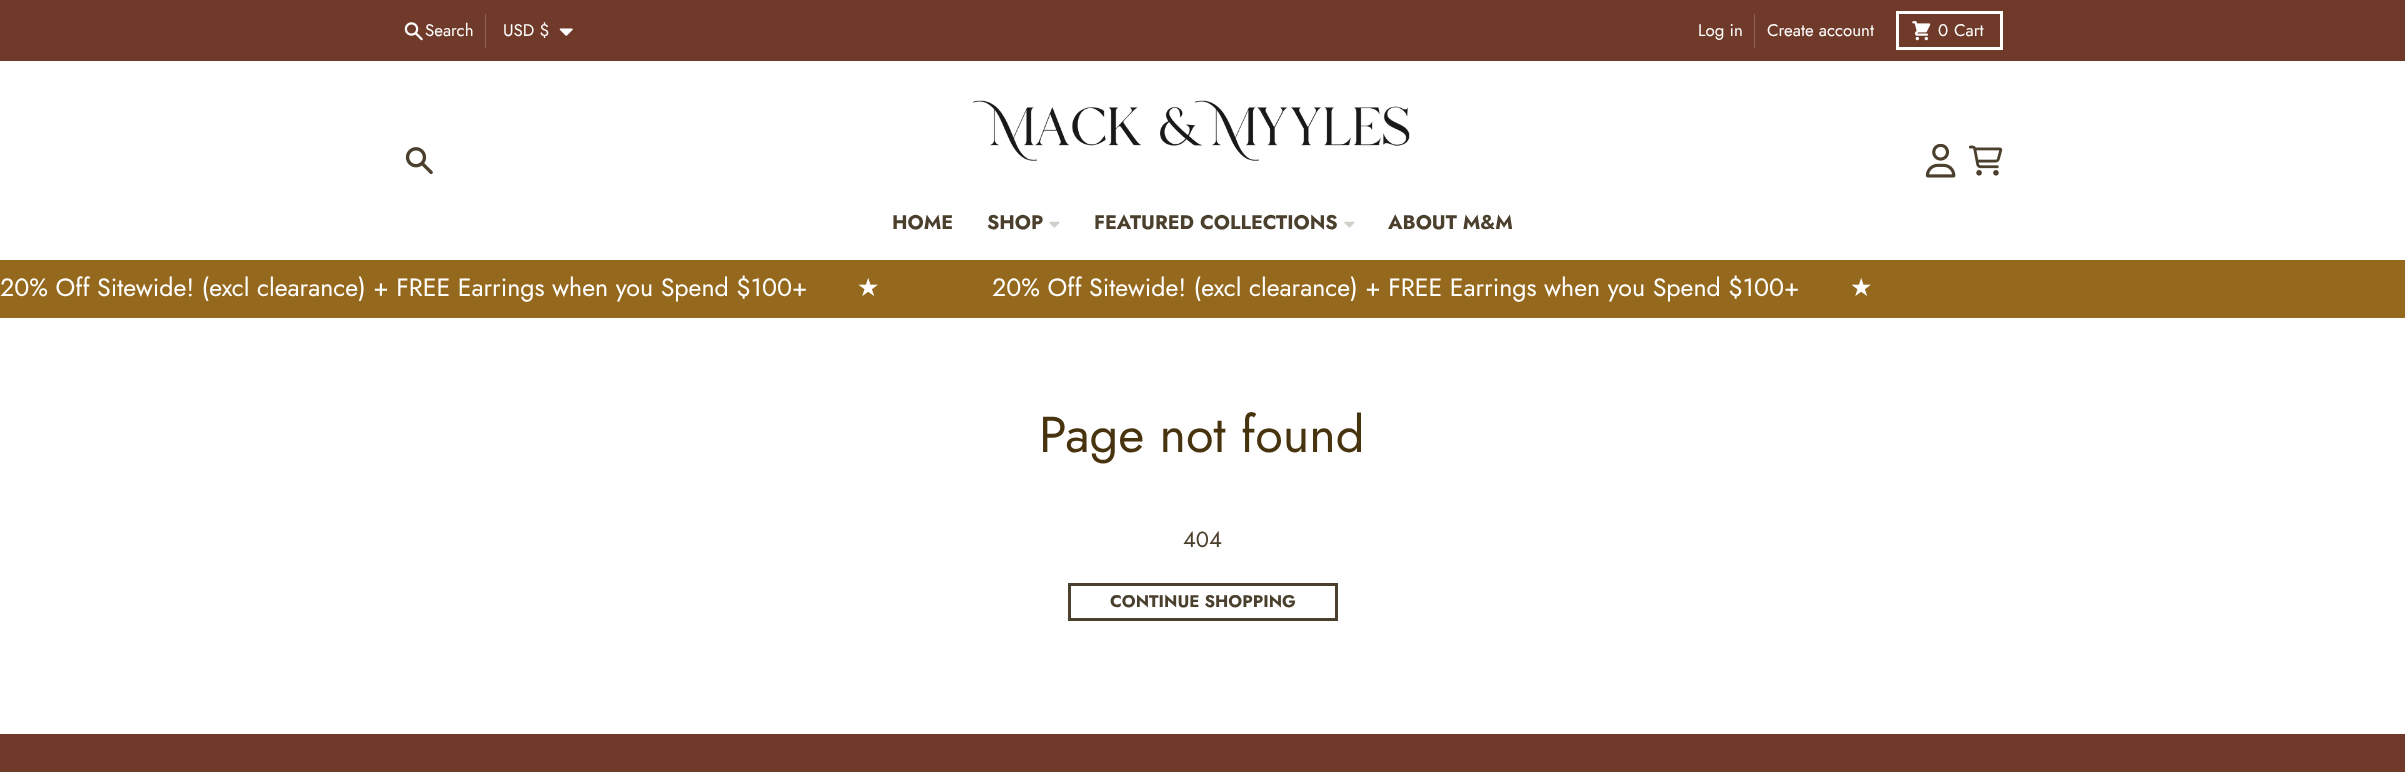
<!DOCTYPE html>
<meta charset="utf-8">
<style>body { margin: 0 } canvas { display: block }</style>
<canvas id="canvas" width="2405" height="772"></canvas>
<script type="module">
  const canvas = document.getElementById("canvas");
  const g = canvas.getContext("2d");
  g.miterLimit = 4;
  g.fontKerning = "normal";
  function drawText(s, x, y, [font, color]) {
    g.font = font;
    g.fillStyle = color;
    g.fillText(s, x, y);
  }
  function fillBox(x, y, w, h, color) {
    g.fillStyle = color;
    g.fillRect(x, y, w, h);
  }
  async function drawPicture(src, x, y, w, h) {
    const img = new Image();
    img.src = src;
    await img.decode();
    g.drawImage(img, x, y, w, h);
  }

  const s1 = ["16.9px Jost", "#FFFFFF"];
  const s2 = ["bold 19.75px Jost", "#4B402D"];
  const s3 = ["25px Jost", "#FFFFFF"];
  const s4 = ["25px DejaVu Sans", "#FFFFFF"];
  const s5 = ["50.5px Jost", "#48330F"];
  const s6 = ["22px Jost", "#4B402D"];
  const s7 = ["bold 16.9px Jost", "#4B402D"];

  fillBox(0, 0, 2405, 772, "#6F3A2A");
  await drawPicture("pic1.png", 404, 22, 19, 19);
  drawText("Search", 425, 36, s1);
  fillBox(485, 14, 1, 34, "#8C6155");
  drawText("USD $", 503, 36, s1);
  await drawPicture("pic2.png", 559, 28, 14, 8);
  drawText("Log in", 1698, 36, s1);
  fillBox(1754, 14, 1, 34, "#8C6155");
  drawText("Create account", 1767, 36, s1);
  g.strokeStyle = "#FFFFFF";
  g.lineWidth = 3;
  g.strokeRect(1897.5, 12.5, 104, 36);
  await drawPicture("pic3.png", 1912, 21, 19, 20);
  drawText("0", 1938, 36, s1);
  drawText("Cart", 1954, 36, s1);
  fillBox(0, 61, 2405, 199, "#FFFFFF");
  await drawPicture("pic4.png", 405, 147, 28, 28);
  await drawPicture("pic5.png", 1925, 144, 31, 34);
  await drawPicture("pic6.png", 1969, 145, 34, 31);
  await drawPicture("pic7.png", 972, 100, 438, 61);
  drawText("HOME", 892, 229, s2);
  drawText("SHOP", 987, 229, s2);
  await drawPicture("pic8.png", 1049, 221, 11, 7);
  drawText("FEATURED COLLECTIONS", 1094, 229, s2);
  await drawPicture("pic8.png", 1344, 221, 11, 7);
  drawText("ABOUT M&M", 1388, 229, s2);
  fillBox(0, 260, 2405, 58, "#94681D");
  drawText("20% Off Sitewide! (excl clearance) + FREE Earrings when you Spend $100+", 0, 296, s3);
  drawText("★", 857, 296, s4);
  drawText("20% Off Sitewide! (excl clearance) + FREE Earrings when you Spend $100+", 992, 296, s3);
  drawText("★", 1850, 296, s4);
  fillBox(0, 318, 2405, 416, "#FFFFFF");
  drawText("Page not found", 1039, 452, s5);
  drawText("404", 1183, 547, s6);
  g.strokeStyle = "#4B402D";
  g.strokeRect(1069.5, 584.5, 267, 35);
  drawText("CONTINUE SHOPPING", 1110, 607, s7);
</script>
